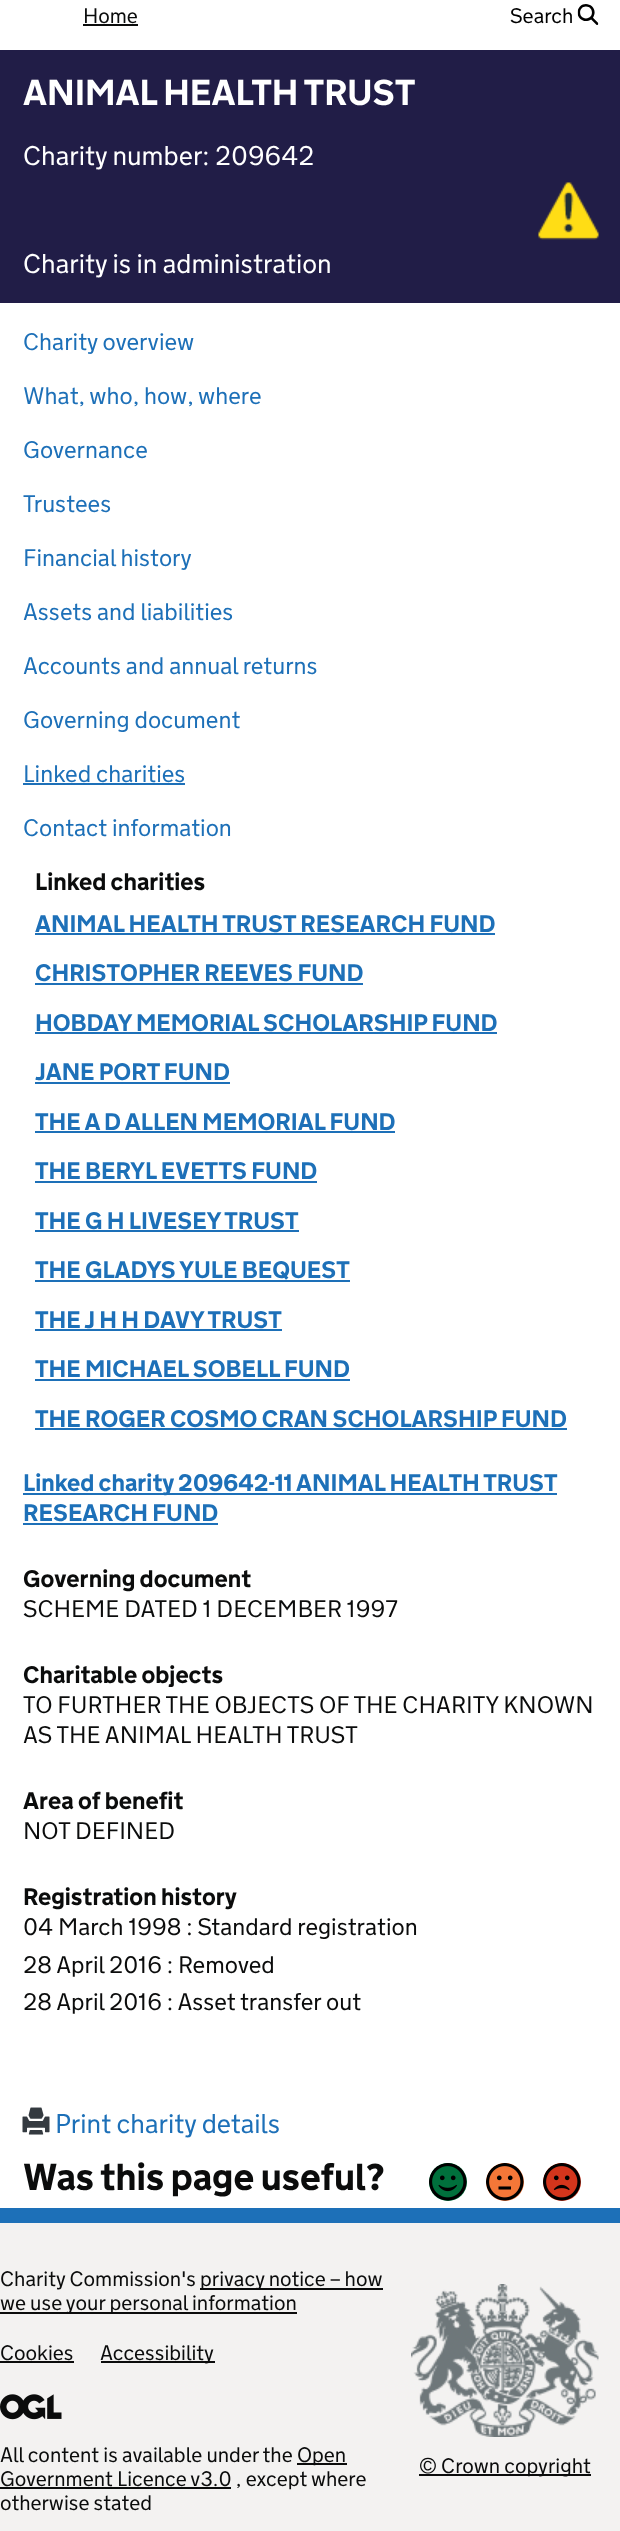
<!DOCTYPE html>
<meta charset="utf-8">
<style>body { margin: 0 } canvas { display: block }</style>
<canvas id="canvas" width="620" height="2531"></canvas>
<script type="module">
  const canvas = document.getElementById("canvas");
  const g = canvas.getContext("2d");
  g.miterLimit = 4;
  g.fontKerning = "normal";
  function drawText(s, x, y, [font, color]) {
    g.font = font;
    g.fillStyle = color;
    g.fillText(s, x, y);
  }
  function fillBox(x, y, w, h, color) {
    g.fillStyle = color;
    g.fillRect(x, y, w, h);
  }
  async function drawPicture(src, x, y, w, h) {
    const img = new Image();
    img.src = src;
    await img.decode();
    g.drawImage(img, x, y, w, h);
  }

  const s1 = ["300 21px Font", "#0B0C0C"];
  const s2 = ["300 21px Font", "#000000"];
  const s3 = ["bold 36px Font", "#FFFFFF"];
  const s4 = ["300 27px Font", "#FFFFFF"];
  const s5 = ["300 24px Font", "#1D70B8"];
  const s6 = ["bold 24px Font", "#0B0C0C"];
  const s7 = ["bold 24px Font", "#1D70B8"];
  const s8 = ["300 24px Font", "#0B0C0C"];
  const s9 = ["300 27px Font", "#1D70B8"];
  const s10 = ["bold 37.5px Font", "#0B0C0C"];

  fillBox(0, 0, 620, 2531, "#FFFFFF");
  drawText("Home", 83, 23, s1);
  fillBox(83, 24, 55, 2, "#0B0C0C");
  drawText("Search", 510, 23, s2);
  await drawPicture("pic1.png", 577, 4, 22, 21);
  fillBox(0, 50, 620, 253, "#211D47");
  drawText("ANIMAL HEALTH TRUST", 23, 105, s3);
  drawText("Charity number: 209642", 23, 165, s4);
  await drawPicture("pic2.png", 538, 182, 61, 58);
  drawText("Charity is in administration", 23, 273, s4);
  drawText("Charity overview", 23, 350, s5);
  drawText("What, who, how, where", 23, 404, s5);
  drawText("Governance", 23, 458, s5);
  drawText("Trustees", 23, 512, s5);
  drawText("Financial history", 23, 566, s5);
  drawText("Assets and liabilities", 23, 620, s5);
  drawText("Accounts and annual returns", 23, 674, s5);
  drawText("Governing document", 23, 728, s5);
  drawText("Linked charities", 23, 782, s5);
  fillBox(23, 783, 162, 2, "#1D70B8");
  drawText("Contact information", 23, 836, s5);
  drawText("Linked charities", 35, 890, s6);
  drawText("ANIMAL HEALTH TRUST RESEARCH FUND", 35, 932, s7);
  fillBox(35, 933, 460, 2, "#1D70B8");
  drawText("CHRISTOPHER REEVES FUND", 35, 981, s7);
  fillBox(35, 983, 328, 2, "#1D70B8");
  drawText("HOBDAY MEMORIAL SCHOLARSHIP FUND", 35, 1031, s7);
  fillBox(35, 1032, 462, 2, "#1D70B8");
  drawText("JANE PORT FUND", 35, 1080, s7);
  fillBox(35, 1082, 195, 2, "#1D70B8");
  drawText("THE A D ALLEN MEMORIAL FUND", 35, 1130, s7);
  fillBox(35, 1131, 360, 2, "#1D70B8");
  drawText("THE BERYL EVETTS FUND", 35, 1179, s7);
  fillBox(35, 1181, 282, 2, "#1D70B8");
  drawText("THE G H LIVESEY TRUST", 35, 1229, s7);
  fillBox(35, 1230, 264, 2, "#1D70B8");
  drawText("THE GLADYS YULE BEQUEST", 35, 1278, s7);
  fillBox(35, 1280, 315, 2, "#1D70B8");
  drawText("THE J H H DAVY TRUST", 35, 1328, s7);
  fillBox(35, 1329, 247, 2, "#1D70B8");
  drawText("THE MICHAEL SOBELL FUND", 35, 1377, s7);
  fillBox(35, 1379, 315, 2, "#1D70B8");
  drawText("THE ROGER COSMO CRAN SCHOLARSHIP FUND", 35, 1427, s7);
  fillBox(35, 1428, 532, 2, "#1D70B8");
  fillBox(23, 1493, 534, 2, "#1D70B8");
  drawText("Linked charity 209642-11 ANIMAL HEALTH TRUST", 23, 1491, s7);
  drawText("RESEARCH FUND", 23, 1521, s7);
  fillBox(23, 1523, 195, 2, "#1D70B8");
  drawText("Governing document", 23, 1587, s6);
  drawText("SCHEME DATED 1 DECEMBER 1997", 23, 1617, s8);
  drawText("Charitable objects", 23, 1683, s6);
  drawText("TO FURTHER THE OBJECTS OF THE CHARITY KNOWN", 23, 1713, s8);
  drawText("AS THE ANIMAL HEALTH TRUST", 23, 1743, s8);
  drawText("Area of benefit", 23, 1809, s6);
  drawText("NOT DEFINED", 23, 1839, s8);
  drawText("Registration history", 23, 1905, s6);
  drawText("04 March 1998 : Standard registration", 23, 1935, s8);
  drawText("28 April 2016 : Removed", 23, 1973, s8);
  drawText("28 April 2016 : Asset transfer out", 23, 2010, s8);
  await drawPicture("pic3.png", 22, 2107, 28, 28);
  drawText("Print charity details", 55, 2133, s9);
  drawText("Was this page useful?", 23, 2190, s10);
  g.fillStyle = "#00703C";
  g.beginPath();
  g.arc(448, 2182, 19, 0, Math.PI * 2);
  g.fill();
  await drawPicture("pic4.png", 429, 2163, 38, 38);
  g.fillStyle = "#F47738";
  g.beginPath();
  g.arc(505, 2182, 19, 0, Math.PI * 2);
  g.fill();
  await drawPicture("pic5.png", 486, 2163, 38, 38);
  g.fillStyle = "#D4351C";
  g.beginPath();
  g.arc(562, 2182, 19, 0, Math.PI * 2);
  g.fill();
  await drawPicture("pic6.png", 543, 2163, 38, 38);
  fillBox(0, 2223, 620, 308, "#F3F2F1");
  fillBox(0, 2208, 620, 15, "#1D70B8");
  drawText("Charity Commission's", 0, 2286, s1);
  fillBox(200, 2288, 183, 2, "#0B0C0C");
  drawText("privacy notice – how", 200, 2286, s1);
  fillBox(0, 2312, 297, 2, "#0B0C0C");
  drawText("we use your personal information", 0, 2310, s1);
  drawText("Cookies", 0, 2360, s1);
  fillBox(0, 2361, 74, 2, "#0B0C0C");
  fillBox(101, 2361, 114, 2, "#0B0C0C");
  drawText("Accessibility", 100, 2360, s1);
  await drawPicture("pic7.png", 0, 2394, 62, 26);
  drawText("All content is available under the", 0, 2462, s1);
  fillBox(297, 2463, 50, 2, "#0B0C0C");
  drawText("Open", 297, 2462, s1);
  fillBox(0, 2487, 231, 2, "#0B0C0C");
  drawText("Government Licence v3.0 , except where", 0, 2486, s1);
  drawText("otherwise stated", 0, 2510, s1);
  await drawPicture("pic8.png", 411, 2284, 188, 153);
  fillBox(419, 2474, 172, 2, "#0B0C0C");
  drawText("© Crown copyright", 419, 2473, s1);
</script>
